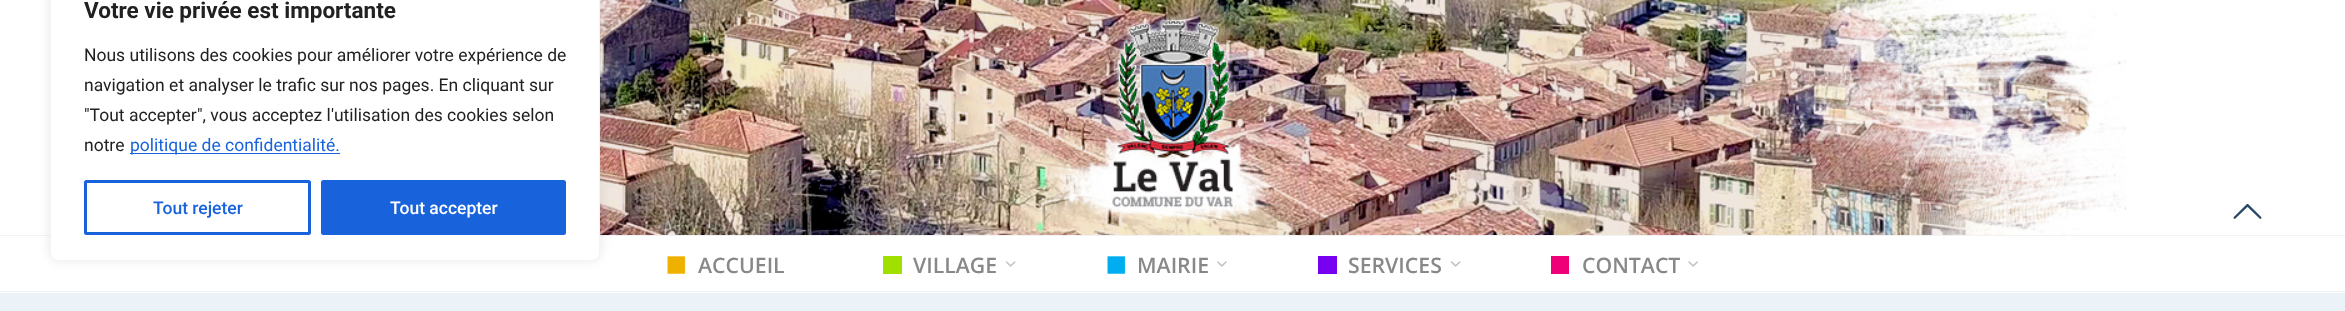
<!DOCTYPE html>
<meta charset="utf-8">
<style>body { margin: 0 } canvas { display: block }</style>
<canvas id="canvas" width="2345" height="311"></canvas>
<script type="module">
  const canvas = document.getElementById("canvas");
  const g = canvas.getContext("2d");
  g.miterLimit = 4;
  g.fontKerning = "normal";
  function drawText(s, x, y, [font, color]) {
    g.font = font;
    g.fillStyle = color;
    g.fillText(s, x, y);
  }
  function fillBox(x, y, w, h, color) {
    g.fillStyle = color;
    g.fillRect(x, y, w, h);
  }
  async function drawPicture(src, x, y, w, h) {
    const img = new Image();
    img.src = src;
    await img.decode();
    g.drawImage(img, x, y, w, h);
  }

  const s1 = ["bold 22.5px Roboto", "#212121"];
  const s2 = ["17.5px Roboto", "#212121"];
  const s3 = ["17.5px Roboto", "#1863DC"];
  const s4 = ["500 17.5px Roboto", "#1863DC"];
  const s5 = ["500 17.5px Roboto", "#FFFFFF"];
  const s6 = ["600 21.25px Open Sans", "#888888"];

  fillBox(0, 0, 2345, 311, "#EBF3F9");
  fillBox(0, 0, 2345, 235, "#FFFFFF");
  await drawPicture("pic1.png", 600, 0, 1527, 235);
  fillBox(0, 236, 2345, 57, "#FFFFFF");
  fillBox(0, 235, 2345, 1, "#F2F2F2");
  g.fillStyle = "rgba(172, 171, 171, 0.3)";
  g.filter = "blur(6px)";
  g.beginPath();
  g.roundRect(50, -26, 550, 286, 8);
  g.fill();
  g.filter = "none";
  g.fillStyle = "#FFFFFF";
  g.beginPath();
  g.roundRect(50.5, -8.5, 549, 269, 7.5);
  g.fill();
  g.strokeStyle = "#F4F4F4";
  g.stroke();
  drawText("Votre vie privée est importante", 84, 18, s1);
  drawText("Nous utilisons des cookies pour améliorer votre expérience de", 84, 61, s2);
  drawText("navigation et analyser le trafic sur nos pages. En cliquant sur", 84, 91, s2);
  drawText("\"Tout accepter\", vous acceptez l'utilisation des cookies selon", 84, 121, s2);
  drawText("notre", 84, 151, s2);
  fillBox(130, 153, 210, 1, "#1863DC");
  drawText("politique de confidentialité.", 130, 151, s3);
  g.beginPath();
  g.roundRect(85.5, 181.5, 224, 52, 1);
  g.strokeStyle = "#1863DC";
  g.lineWidth = 3;
  g.stroke();
  drawText("Tout rejeter", 153, 214, s4);
  g.beginPath();
  g.roundRect(322.5, 181.5, 242, 52, 1);
  g.fill();
  g.stroke();
  drawText("Tout accepter", 390, 214, s5);
  await drawPicture("pic2.png", 2233, 203, 29, 16);
  fillBox(0, 291, 2345, 1, "#F2F2F2");
  await drawPicture("pic3.png", 667, 256, 19, 18);
  drawText("ACCUEIL", 698, 273, s6);
  fillBox(883, 256, 19, 18, "#A0DF00");
  drawText("VILLAGE", 913, 273, s6);
  await drawPicture("pic4.png", 1005, 261, 11, 6);
  await drawPicture("pic5.png", 1107, 256, 19, 18);
  drawText("MAIRIE", 1137, 273, s6);
  await drawPicture("pic6.png", 1217, 261, 10, 6);
  fillBox(1318, 256, 19, 18, "#7600EF");
  drawText("SERVICES", 1348, 273, s6);
  await drawPicture("pic4.png", 1450, 261, 11, 6);
  fillBox(1551, 256, 18, 18, "#EF0079");
  drawText("CONTACT", 1582, 273, s6);
  await drawPicture("pic7.png", 1688, 261, 10, 6);
</script>
